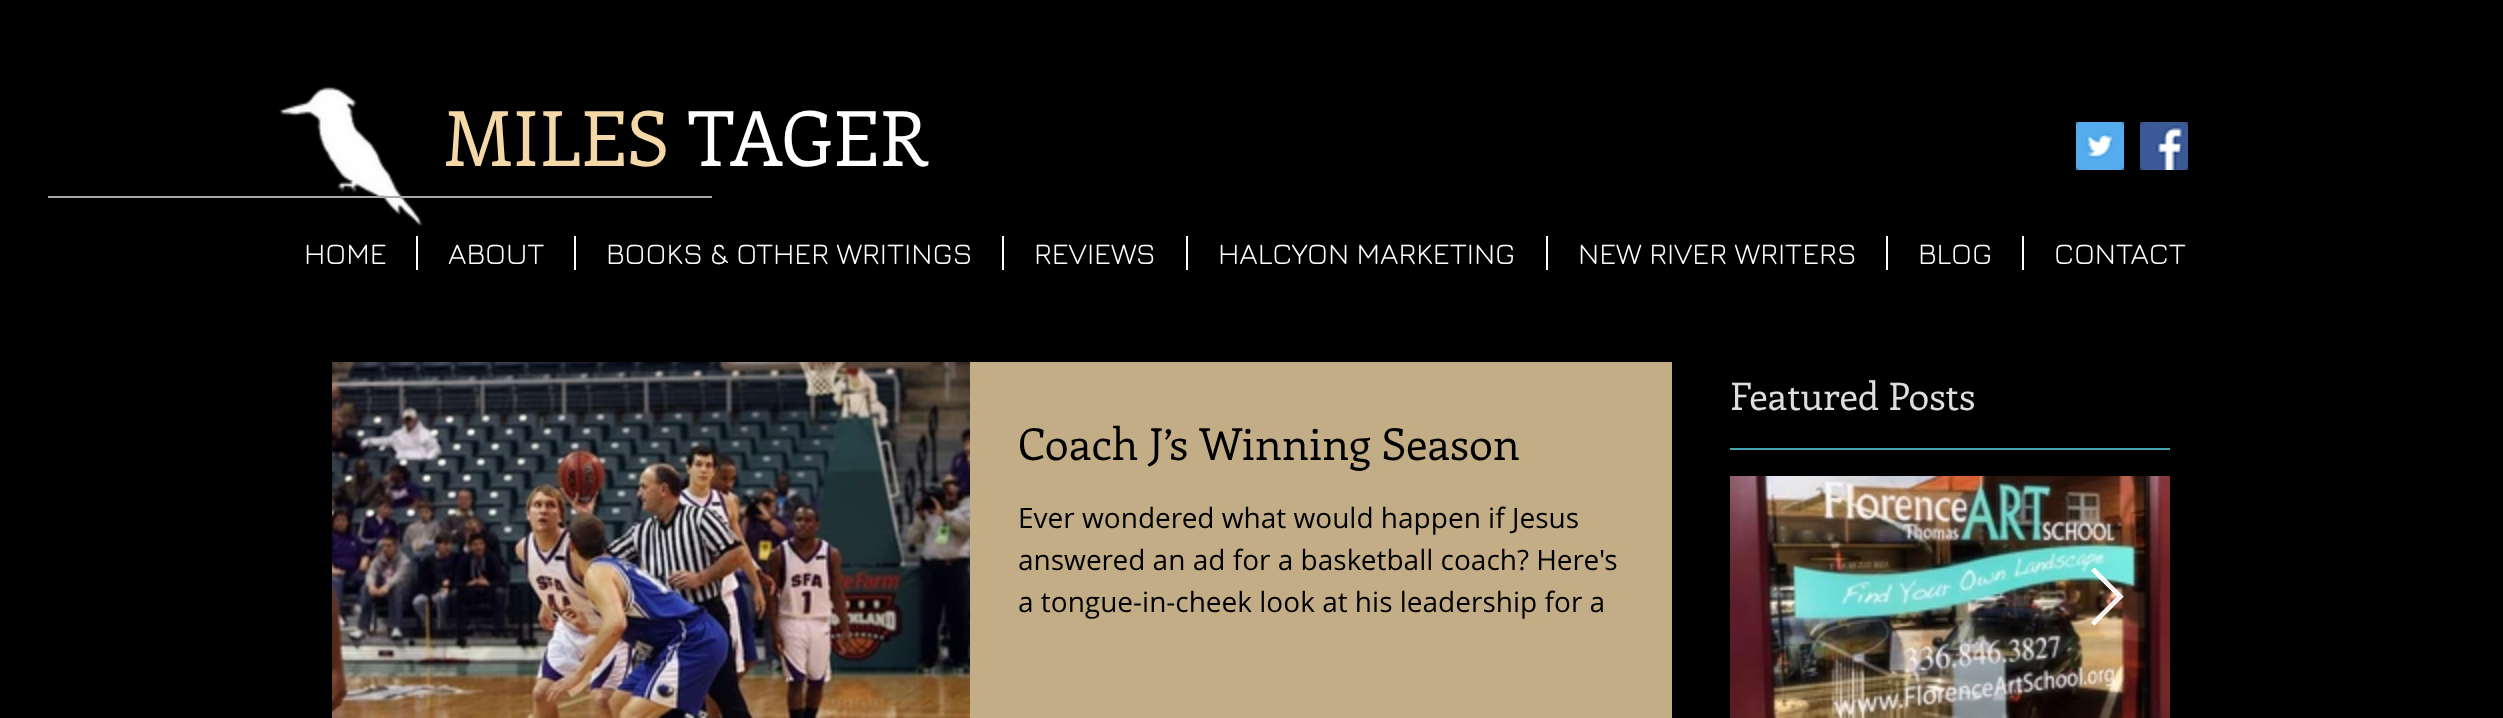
<!DOCTYPE html>
<meta charset="utf-8">
<style>body { margin: 0 } canvas { display: block }</style>
<canvas id="canvas" width="2503" height="718"></canvas>
<script type="module">
  const canvas = document.getElementById("canvas");
  const g = canvas.getContext("2d");
  g.miterLimit = 4;
  g.fontKerning = "normal";
  function drawText(s, x, y, [font, color]) {
    g.font = font;
    g.fillStyle = color;
    g.fillText(s, x, y);
  }
  function fillBox(x, y, w, h, color) {
    g.fillStyle = color;
    g.fillRect(x, y, w, h);
  }
  async function drawPicture(src, x, y, w, h) {
    const img = new Image();
    img.src = src;
    await img.decode();
    g.drawImage(img, x, y, w, h);
  }

  const s1 = ["76px Enriqueta", "#F4D8A8"];
  const s2 = ["76px Enriqueta", "#FFFFFF"];
  const s3 = ["30px Jura", "#FFFFFF"];
  const s4 = ["38px Enriqueta", "#E0DDDD"];
  const s5 = ["44px Enriqueta", "#000000"];
  const s6 = ["28px Open Sans", "#000000"];

  fillBox(0, 0, 2503, 718, "#000000");
  await drawPicture("pic1.png", 279, 87, 144, 140);
  drawText("MILES", 444, 166, s1);
  drawText("TAGER", 688, 166, s2);
  fillBox(48, 196, 664, 2, "#AAA8A8");
  drawText("HOME", 304, 264, s3);
  fillBox(416, 236, 2, 34, "#FFFFFF");
  drawText("ABOUT", 448, 264, s3);
  fillBox(574, 236, 2, 34, "#FFFFFF");
  drawText("BOOKS & OTHER WRITINGS", 606, 264, s3);
  fillBox(1002, 236, 2, 34, "#FFFFFF");
  drawText("REVIEWS", 1034, 264, s3);
  fillBox(1186, 236, 2, 34, "#FFFFFF");
  drawText("HALCYON MARKETING", 1218, 264, s3);
  fillBox(1546, 236, 2, 34, "#FFFFFF");
  drawText("NEW RIVER WRITERS", 1578, 264, s3);
  fillBox(1886, 236, 2, 34, "#FFFFFF");
  drawText("BLOG", 1918, 264, s3);
  fillBox(2022, 236, 2, 34, "#FFFFFF");
  drawText("CONTACT", 2054, 264, s3);
  await drawPicture("pic2.png", 2076, 122, 48, 48);
  await drawPicture("pic3.png", 2140, 122, 48, 48);
  drawText("Featured Posts", 1730, 410, s4);
  await drawPicture("pic4.png", 332, 362, 638, 356);
  fillBox(970, 362, 702, 356, "#C3AD86");
  drawText("Coach J’s Winning Season", 1018, 460, s5);
  drawText("Ever wondered what would happen if Jesus", 1018, 528, s6);
  drawText("answered an ad for a basketball coach? Here's", 1018, 570, s6);
  drawText("a tongue-in-cheek look at his leadership for a", 1018, 612, s6);
  fillBox(1730, 448, 440, 2, "#42A7B2");
  await drawPicture("pic5.png", 1730, 476, 440, 242);
  g.fillStyle = "rgba(255, 255, 255, 0.9)";
  g.beginPath();
  g.moveTo(2092, 571);
  g.lineTo(2094, 568);
  g.lineTo(2123, 597);
  g.lineTo(2094, 625);
  g.lineTo(2092, 622);
  g.lineTo(2118, 597);
  g.closePath();
  g.fill();
  g.beginPath();
  g.moveTo(2092, 570.5);
  g.lineTo(2094.5, 568.5);
  g.lineTo(2122.5, 596.5);
  g.lineTo(2094.5, 624.5);
  g.lineTo(2092, 622.5);
  g.lineTo(2118, 596.5);
  g.closePath();
  g.strokeStyle = "rgba(255, 255, 255, 0.9)";
  g.lineWidth = 1.6;
  g.stroke();
</script>
